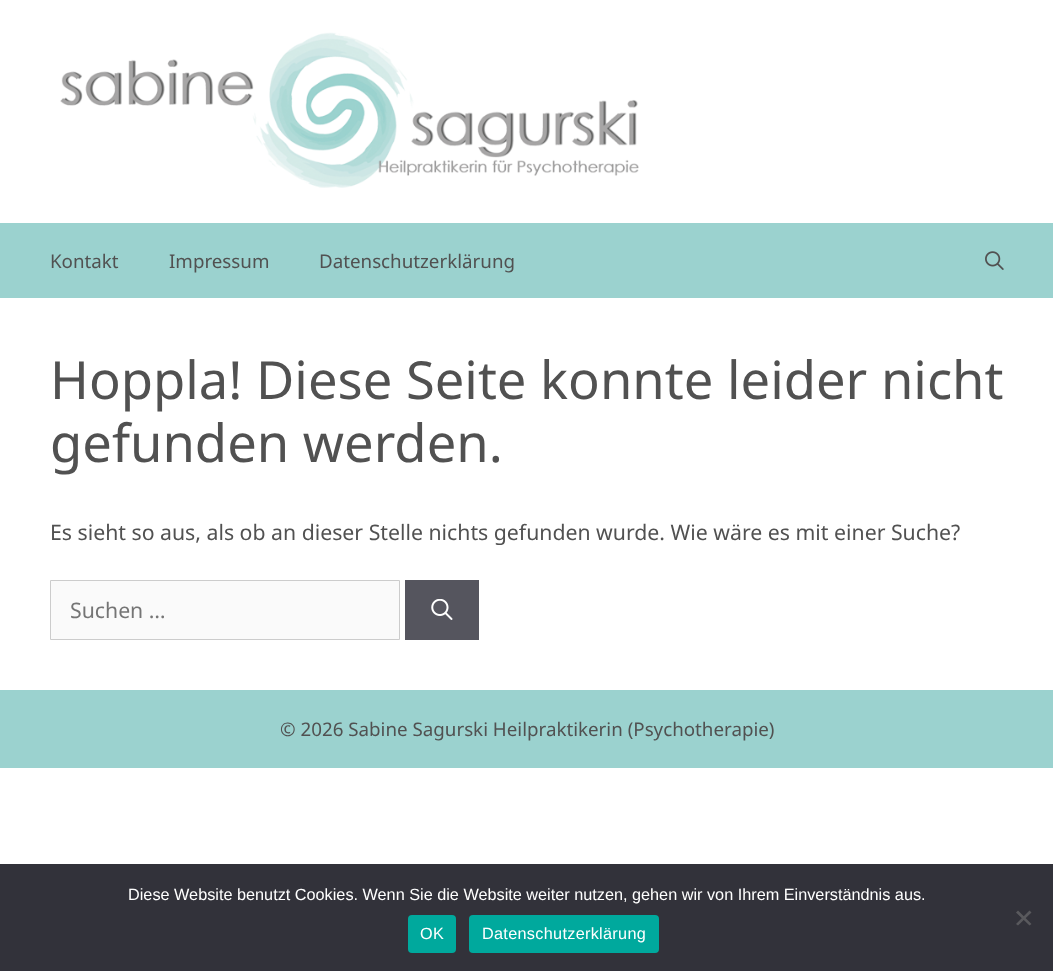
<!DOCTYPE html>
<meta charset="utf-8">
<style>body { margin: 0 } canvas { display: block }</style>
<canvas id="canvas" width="1053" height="971"></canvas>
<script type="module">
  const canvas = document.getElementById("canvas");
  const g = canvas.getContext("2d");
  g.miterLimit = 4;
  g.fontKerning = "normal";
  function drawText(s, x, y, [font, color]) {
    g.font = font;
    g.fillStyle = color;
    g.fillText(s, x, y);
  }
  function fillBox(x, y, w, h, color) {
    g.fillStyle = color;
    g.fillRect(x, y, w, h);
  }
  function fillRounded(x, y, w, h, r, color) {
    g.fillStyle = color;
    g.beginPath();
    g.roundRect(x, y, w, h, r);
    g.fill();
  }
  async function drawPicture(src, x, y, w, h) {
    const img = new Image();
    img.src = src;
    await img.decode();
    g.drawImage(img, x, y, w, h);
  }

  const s1 = ["18.75px Noto Sans", "#515151"];
  const s2 = ["52.5px Noto Sans", "#515151"];
  const s3 = ["21.25px Noto Sans", "#515151"];
  const s4 = ["21.25px Noto Sans", "#757575"];
  const s5 = ["16.25px Liberation Sans", "#FFFFFF"];

  fillBox(0, 0, 1053, 971, "#FFFFFF");
  await drawPicture("pic1.png", 60, 32, 579, 156);
  fillBox(0, 223, 1053, 75, "#9BD2CF");
  drawText("Kontakt", 50, 268, s1);
  drawText("Impressum", 169, 268, s1);
  drawText("Datenschutzerklärung", 319, 268, s1);
  await drawPicture("pic2.png", 985, 251, 19, 19);
  drawText("Hoppla! Diese Seite konnte leider nicht", 50, 399, s2);
  drawText("gefunden werden.", 50, 462, s2);
  drawText("Es sieht so aus, als ob an dieser Stelle nichts gefunden wurde. Wie wäre es mit einer Suche?", 50, 540, s3);
  g.fillStyle = "#FAFAFA";
  g.beginPath();
  g.rect(50.5, 580.5, 349, 59);
  g.fill();
  g.strokeStyle = "#CCCCCC";
  g.stroke();
  drawText("Suchen …", 70, 618, s4);
  fillBox(405, 580, 74, 60, "#55555E");
  await drawPicture("pic3.png", 431, 599, 22, 21);
  fillBox(0, 690, 1053, 78, "#9BD2CF");
  drawText("© 2026 Sabine Sagurski Heilpraktikerin (Psychotherapie)", 280, 736, s1);
  fillBox(0, 864, 1053, 107, "#32323A");
  drawText("Diese Website benutzt Cookies. Wenn Sie die Website weiter nutzen, gehen wir von Ihrem Einverständnis aus.", 128, 900, s5);
  g.fillStyle = "#59595D";
  g.beginPath();
  g.moveTo(1029.5, 910.5);
  g.lineTo(1031.5, 912.5);
  g.lineTo(1018, 925.5);
  g.lineTo(1016, 924);
  g.closePath();
  g.fill();
  g.beginPath();
  g.moveTo(1016, 912.5);
  g.lineTo(1018, 910.5);
  g.lineTo(1031.5, 924);
  g.lineTo(1029.5, 925.5);
  g.closePath();
  g.fill();
  fillRounded(408, 915, 48, 38, 4, "#00A99D");
  g.letterSpacing = "0.3px";
  drawText("OK", 420, 939, s5);
  fillRounded(469, 915, 190, 38, 4, "#00A99D");
  drawText("Datenschutzerklärung", 482, 939, s5);
</script>
